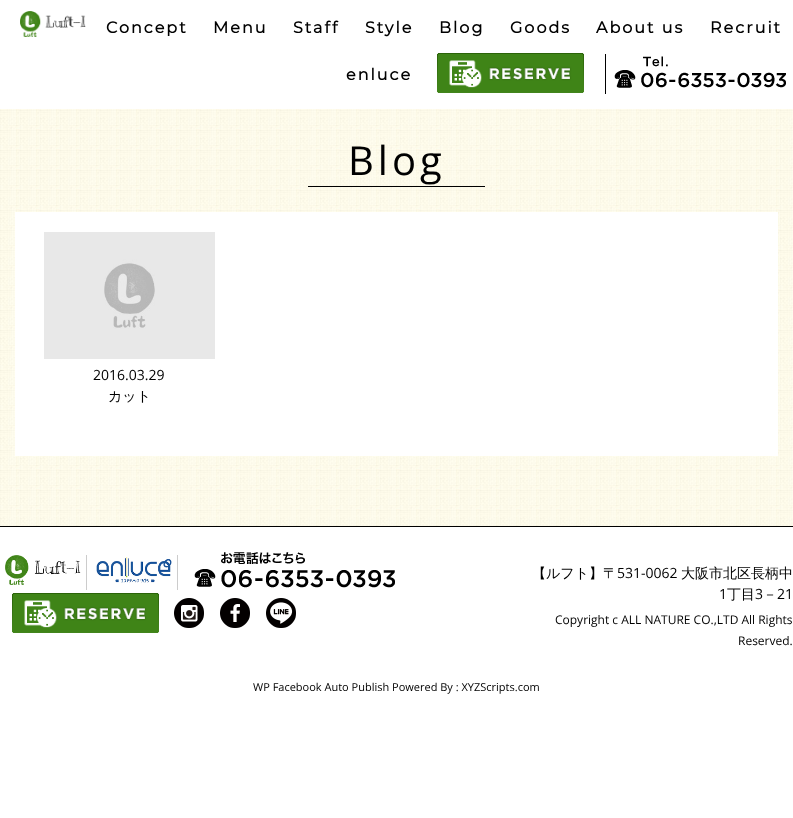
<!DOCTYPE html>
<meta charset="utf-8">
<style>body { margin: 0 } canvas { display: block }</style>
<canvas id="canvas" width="793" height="818"></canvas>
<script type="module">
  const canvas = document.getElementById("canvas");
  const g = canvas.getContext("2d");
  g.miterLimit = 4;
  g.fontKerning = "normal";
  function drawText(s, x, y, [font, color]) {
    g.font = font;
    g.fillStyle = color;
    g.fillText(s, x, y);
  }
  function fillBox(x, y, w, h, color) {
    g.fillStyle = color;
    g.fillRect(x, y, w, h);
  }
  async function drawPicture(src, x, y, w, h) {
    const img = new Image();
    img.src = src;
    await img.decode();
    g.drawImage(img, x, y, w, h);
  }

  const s1 = ["bold 16px Montserrat", "#000000"];
  const s2 = ["40px Open Sans", "#000000"];
  const s3 = ["14px Open Sans", "#000000"];
  const s4 = ["500 14px WenQuanYi Zen Hei", "#000000"];
  const s5 = ["12px Open Sans", "#000000"];
  const s6 = ["11px Open Sans", "#000000"];

  fillBox(0, 0, 793, 818, "#FFFFFF");
  await drawPicture("pic1.png", 20, 11, 66, 26);
  g.letterSpacing = "2px";
  drawText("Concept", 106, 33, s1);
  drawText("Menu", 213, 33, s1);
  drawText("Staff", 293, 33, s1);
  drawText("Style", 365, 33, s1);
  drawText("Blog", 439, 33, s1);
  drawText("Goods", 510, 33, s1);
  drawText("About us", 596, 33, s1);
  drawText("Recruit", 710, 33, s1);
  drawText("enluce", 346, 80, s1);
  await drawPicture("pic2.png", 437, 53, 147, 40);
  fillBox(605, 54, 1, 40, "#000000");
  await drawPicture("pic3.png", 614, 56, 172, 32);
  await drawPicture("pic4.png", 0, 109, 793, 417);
  fillBox(308, 186, 177, 1, "#000000");
  g.letterSpacing = "4px";
  drawText("Blog", 348, 175, s2);
  fillBox(15, 212, 763, 244, "#FFFFFF");
  await drawPicture("pic5.png", 44, 232, 171, 127);
  g.letterSpacing = "0px";
  drawText("2016.03.29", 93, 380, s3);
  drawText("カット", 108, 401, s4);
  fillBox(0, 526, 793, 1, "#000000");
  fillBox(86, 555, 1, 35, "#CCCCCC");
  await drawPicture("pic6.png", 5, 555, 76, 30);
  fillBox(177, 555, 1, 35, "#CCCCCC");
  await drawPicture("pic7.png", 96, 557, 76, 26);
  await drawPicture("pic8.png", 194, 552, 201, 36);
  await drawPicture("pic9.png", 12, 593, 147, 40);
  await drawPicture("pic10.png", 174, 598, 30, 30);
  await drawPicture("pic11.png", 220, 598, 30, 30);
  await drawPicture("pic12.png", 266, 598, 30, 30);
  drawText("【ルフト】〒", 532, 578, s4);
  drawText("531-0062", 617, 578, s3);
  drawText("大阪市北区長柄中", 681, 578, s4);
  drawText("1", 719, 599, s3);
  drawText("丁目", 727, 599, s4);
  drawText("3", 755, 599, s3);
  drawText("－", 763, 599, s4);
  drawText("21", 777, 599, s3);
  drawText("Copyright c ALL NATURE CO.,LTD All Rights", 555, 624, s5);
  drawText("Reserved.", 738, 645, s5);
  drawText("WP Facebook Auto Publish Powered By : XYZScripts.com", 253, 691, s6);
</script>
